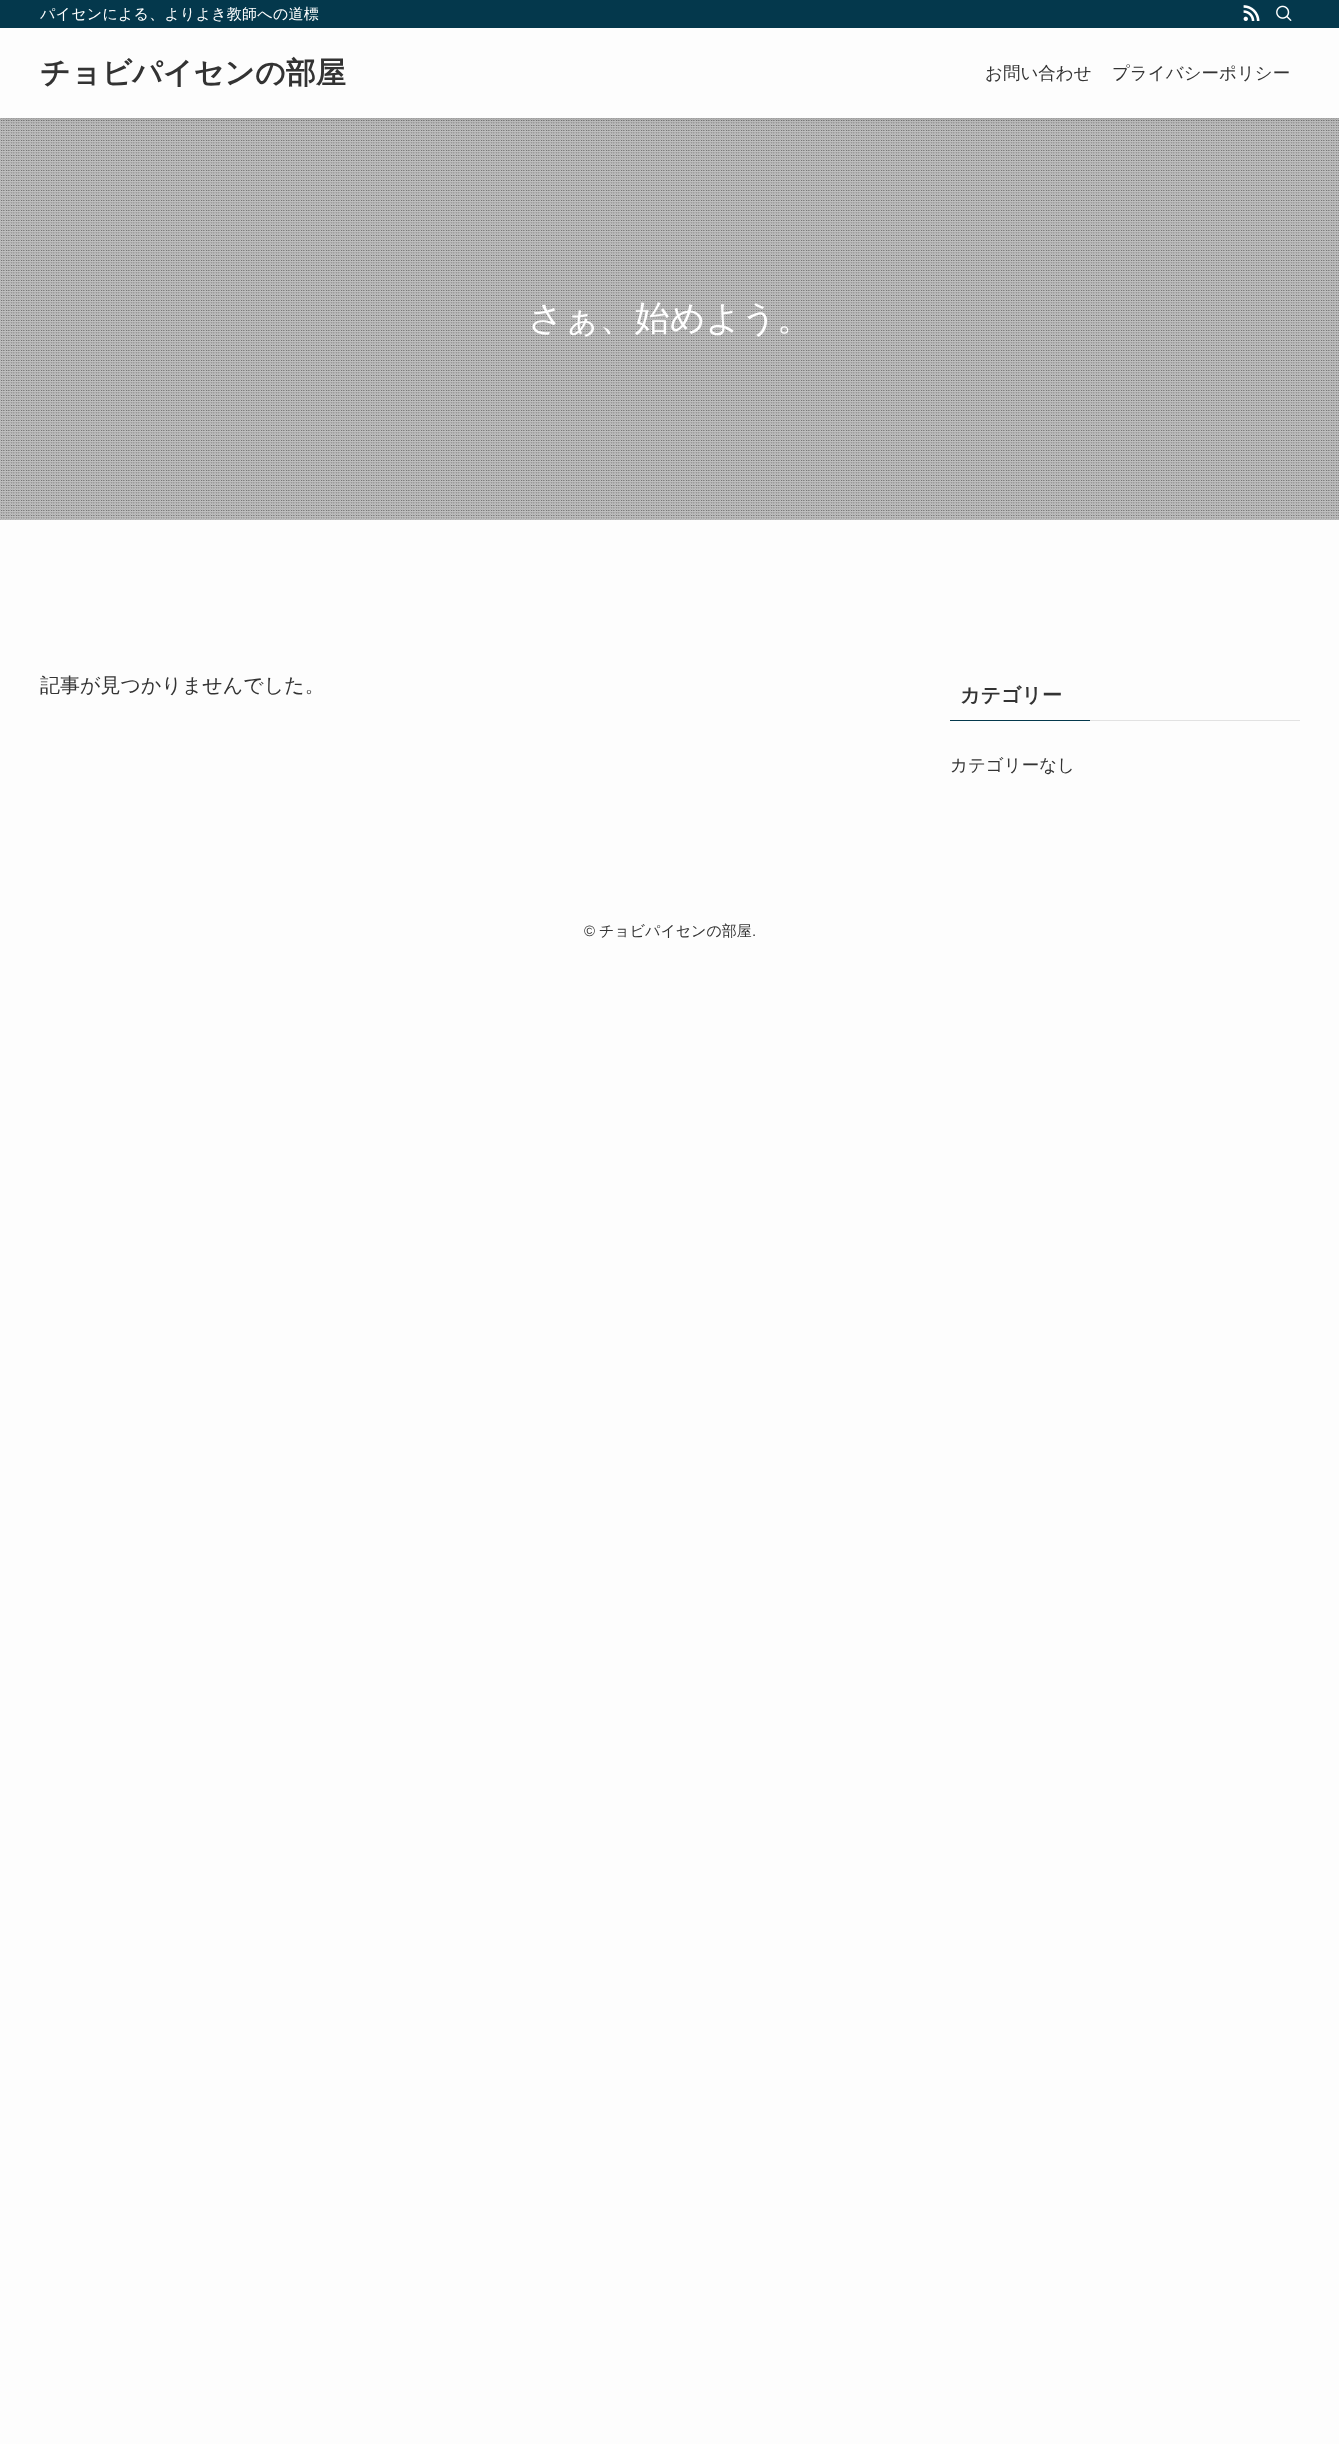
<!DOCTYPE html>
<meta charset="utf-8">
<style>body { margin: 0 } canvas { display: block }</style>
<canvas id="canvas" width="1339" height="2444"></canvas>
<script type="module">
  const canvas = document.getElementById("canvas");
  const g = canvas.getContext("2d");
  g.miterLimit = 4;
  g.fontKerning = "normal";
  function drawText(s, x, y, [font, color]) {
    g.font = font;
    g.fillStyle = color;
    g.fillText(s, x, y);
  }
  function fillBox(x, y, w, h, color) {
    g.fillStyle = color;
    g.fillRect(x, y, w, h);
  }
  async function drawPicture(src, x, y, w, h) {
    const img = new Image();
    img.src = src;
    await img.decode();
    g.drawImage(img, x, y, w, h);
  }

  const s1 = ["500 15px WenQuanYi Zen Hei", "#FFFFFF"];
  const s2 = ["bold 30px WenQuanYi Zen Hei", "#333333"];
  const s3 = ["500 17.5px WenQuanYi Zen Hei", "#333333"];
  const s4 = ["500 35px WenQuanYi Zen Hei", "#FFFFFF"];
  const s5 = ["500 20px WenQuanYi Zen Hei", "#333333"];
  const s6 = ["bold 20px WenQuanYi Zen Hei", "#333333"];
  const s7 = ["15px Liberation Sans", "#333333"];
  const s8 = ["500 15px WenQuanYi Zen Hei", "#333333"];

  fillBox(0, 0, 1339, 2444, "#FDFDFD");
  fillBox(0, 118, 1339, 402, "#C0C0C0");
  await drawPicture("pic3.png", 0, 118, 1339, 402);
  g.fillStyle = "rgba(0, 0, 0, 0.12)";
  g.filter = "blur(2.5px)";
  g.beginPath();
  g.rect(0, 1, 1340, 118);
  g.fill();
  g.filter = "none";
  fillBox(0, 28, 1339, 90, "#FDFDFD");
  fillBox(0, 0, 1339, 28, "#04384C");
  g.letterSpacing = "0.25px";
  drawText("パイセンによる、よりよき教師への道標", 40, 19, s1);
  await drawPicture("pic1.png", 1243, 5, 17, 16);
  await drawPicture("pic2.png", 1276, 5, 16, 16);
  g.letterSpacing = "0px";
  drawText("チョビパイセンの部屋", 40, 83, s2);
  drawText("お問い合わせ", 985, 79, s3);
  drawText("プライバシーポリシー", 1112, 79, s3);
  drawText("さぁ、始めよう。", 528, 330, s4);
  drawText("記事が見つかりませんでした。", 40, 692, s5);
  drawText("カテゴリー", 960, 702, s6);
  fillBox(950, 720, 140, 1, "#04384C");
  fillBox(1090, 720, 210, 1, "#E2E2E2");
  drawText("カテゴリーなし", 950, 771, s3);
  drawText("©", 584, 936, s7);
  drawText("チョビパイセンの部屋", 599, 936, s8);
  drawText(".", 752, 936, s7);
</script>
